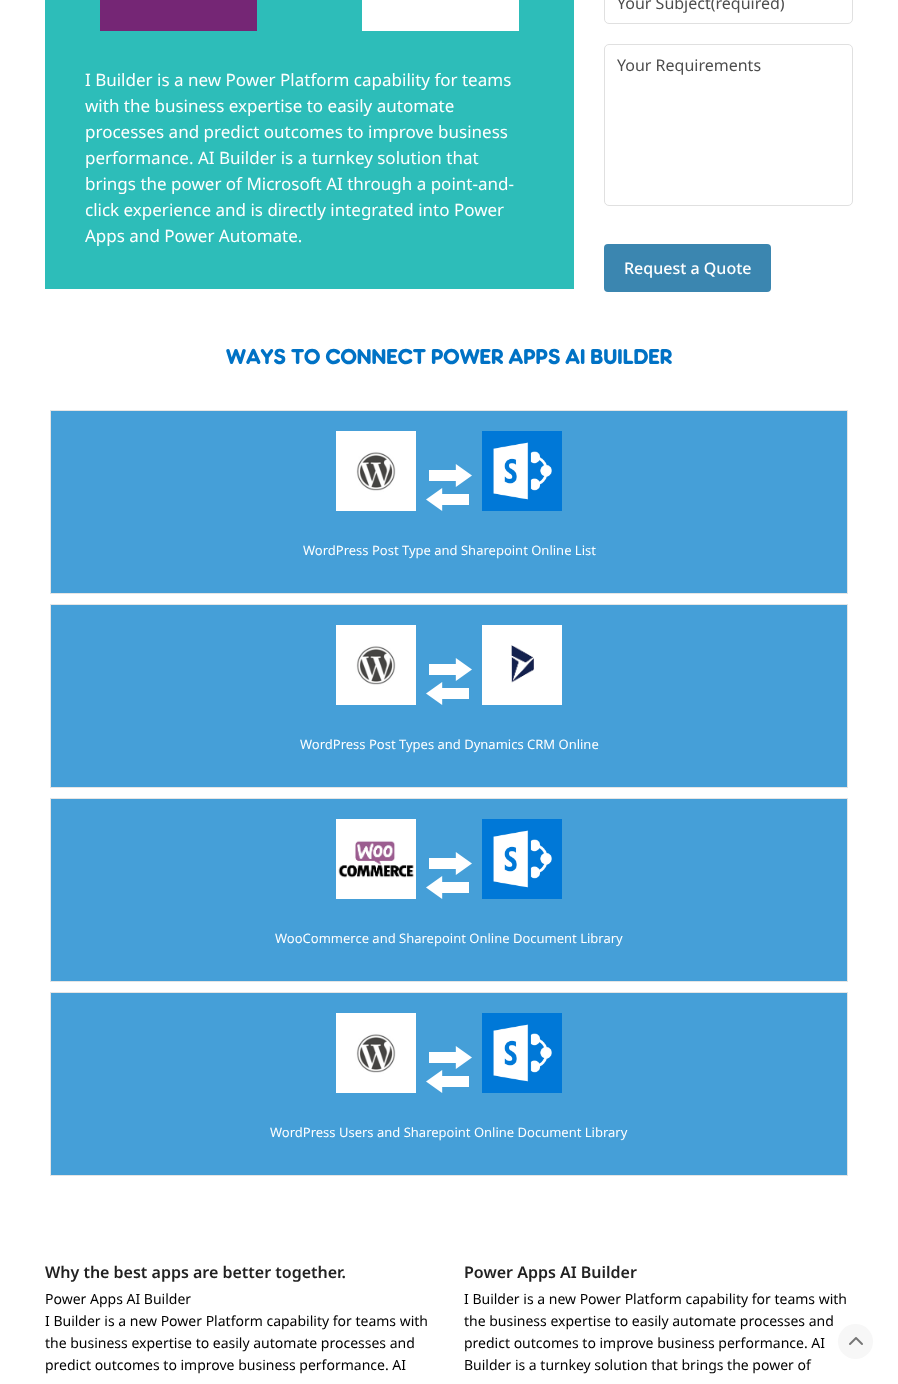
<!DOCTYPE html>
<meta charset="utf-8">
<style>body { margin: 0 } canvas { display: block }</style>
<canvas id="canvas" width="898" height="1384"></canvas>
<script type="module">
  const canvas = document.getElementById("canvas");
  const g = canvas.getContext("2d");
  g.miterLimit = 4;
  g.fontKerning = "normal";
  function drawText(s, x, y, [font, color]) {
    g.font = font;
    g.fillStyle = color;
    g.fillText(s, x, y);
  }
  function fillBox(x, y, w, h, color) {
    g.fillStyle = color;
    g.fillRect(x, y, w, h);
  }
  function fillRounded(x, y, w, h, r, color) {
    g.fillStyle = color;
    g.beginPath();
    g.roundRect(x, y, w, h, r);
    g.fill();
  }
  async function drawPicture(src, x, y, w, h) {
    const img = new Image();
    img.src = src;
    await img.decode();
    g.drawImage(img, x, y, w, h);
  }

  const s1 = ["17px Noto Sans", "#FFFFFF"];
  const s2 = ["16px Noto Sans", "#4D4D4D"];
  const s3 = ["500 16px Noto Sans", "#FFFFFF"];
  const s4 = ["500 20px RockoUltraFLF", "#0072C5"];
  const s5 = ["13px Noto Sans", "#FFFFFF"];
  const s6 = ["600 16px Noto Sans", "#222222"];
  const s7 = ["14px Noto Sans", "#000000"];

  fillBox(0, 0, 898, 1384, "#FFFFFF");
  fillBox(45, 0, 529, 289, "#2DBDB9");
  fillBox(100, 0, 157, 31, "#752675");
  fillBox(362, 0, 157, 31, "#FFFFFF");
  drawText("I Builder is a new Power Platform capability for teams", 85, 86, s1);
  drawText("with the business expertise to easily automate", 85, 112, s1);
  drawText("processes and predict outcomes to improve business", 85, 138, s1);
  drawText("performance. AI Builder is a turnkey solution that", 85, 164, s1);
  drawText("brings the power of Microsoft AI through a point-and-", 85, 190, s1);
  drawText("click experience and is directly integrated into Power", 85, 216, s1);
  drawText("Apps and Power Automate.", 85, 242, s1);
  g.beginPath();
  g.roundRect(604.5, -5.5, 248, 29, 4.5);
  g.strokeStyle = "#E0E0E0";
  g.stroke();
  drawText("Your Subject(required)", 617, 9, s2);
  g.beginPath();
  g.roundRect(604.5, 44.5, 248, 161, 4.5);
  g.stroke();
  drawText("Your Requirements", 617, 71, s2);
  fillRounded(604, 244, 167, 48, 4, "#3B86B0");
  drawText("Request a Quote", 624, 274, s3);
  drawText("WAYS TO CONNECT POWER APPS AI BUILDER", 226, 364, s4);
  g.fillStyle = "#459FD8";
  g.beginPath();
  g.rect(50.5, 410.5, 797, 183);
  g.fill();
  g.strokeStyle = "#E5E5E5";
  g.stroke();
  await drawPicture("pic1.png", 336, 431, 80, 80);
  await drawPicture("pic2.png", 426, 464, 46, 47);
  await drawPicture("pic3.png", 482, 431, 80, 80);
  drawText("WordPress Post Type and Sharepoint Online List", 303, 555, s5);
  g.fillStyle = "#459FD8";
  g.beginPath();
  g.rect(50.5, 604.5, 797, 183);
  g.fill();
  g.stroke();
  await drawPicture("pic1.png", 336, 625, 80, 80);
  await drawPicture("pic2.png", 426, 658, 46, 47);
  await drawPicture("pic4.png", 482, 625, 80, 80);
  drawText("WordPress Post Types and Dynamics CRM Online", 300, 749, s5);
  g.fillStyle = "#459FD8";
  g.beginPath();
  g.rect(50.5, 798.5, 797, 183);
  g.fill();
  g.stroke();
  await drawPicture("pic5.png", 336, 819, 80, 80);
  await drawPicture("pic2.png", 426, 852, 46, 47);
  await drawPicture("pic6.png", 482, 819, 80, 80);
  drawText("WooCommerce and Sharepoint Online Document Library", 275, 943, s5);
  g.fillStyle = "#459FD8";
  g.beginPath();
  g.rect(50.5, 992.5, 797, 183);
  g.fill();
  g.stroke();
  await drawPicture("pic1.png", 336, 1013, 80, 80);
  await drawPicture("pic2.png", 426, 1046, 46, 47);
  await drawPicture("pic6.png", 482, 1013, 80, 80);
  drawText("WordPress Users and Sharepoint Online Document Library", 270, 1137, s5);
  drawText("Why the best apps are better together.", 45, 1278, s6);
  drawText("Power Apps AI Builder", 45, 1304, s7);
  drawText("I Builder is a new Power Platform capability for teams with", 45, 1326, s7);
  drawText("the business expertise to easily automate processes and", 45, 1348, s7);
  drawText("predict outcomes to improve business performance. AI", 45, 1370, s7);
  drawText("Power Apps AI Builder", 464, 1278, s6);
  drawText("I Builder is a new Power Platform capability for teams with", 464, 1304, s7);
  drawText("the business expertise to easily automate processes and", 464, 1326, s7);
  drawText("predict outcomes to improve business performance. AI", 464, 1348, s7);
  drawText("Builder is a turnkey solution that brings the power of", 464, 1370, s7);
  g.fillStyle = "#F7F7F7";
  g.beginPath();
  g.arc(855.5, 1341.5, 17.5, 0, Math.PI * 2);
  g.fill();
  await drawPicture("pic7.png", 849, 1337, 14, 8);
</script>
